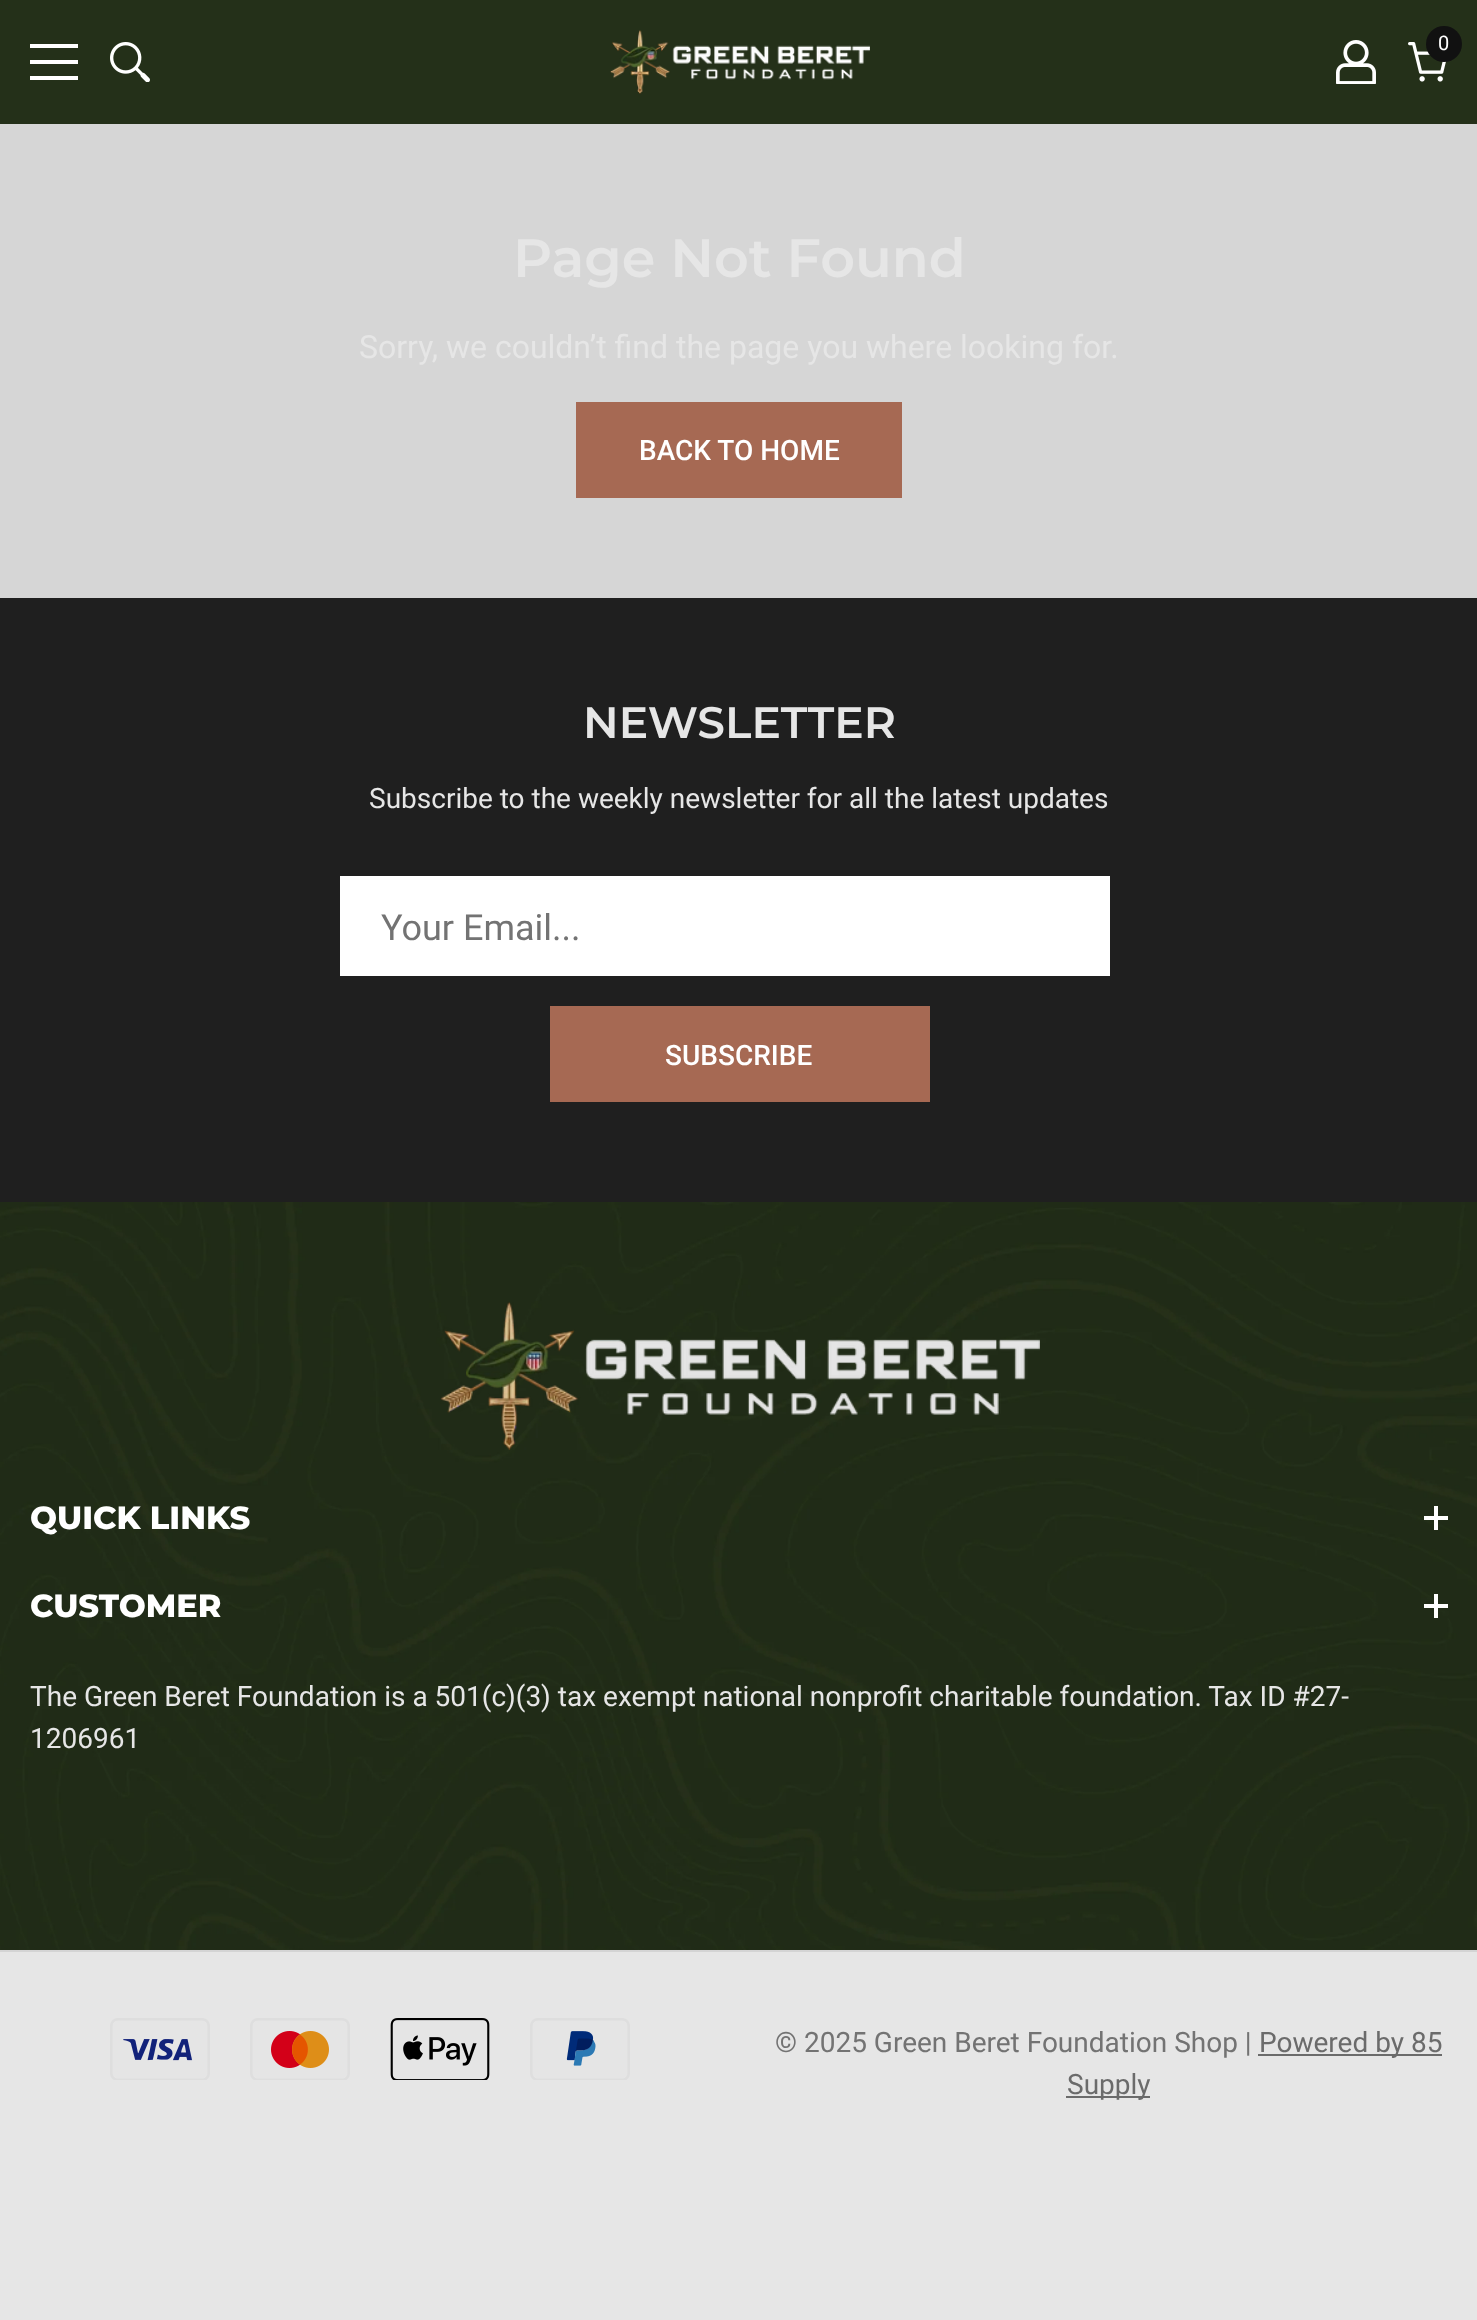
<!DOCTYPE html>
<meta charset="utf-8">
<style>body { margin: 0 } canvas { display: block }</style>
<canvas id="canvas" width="1477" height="2320"></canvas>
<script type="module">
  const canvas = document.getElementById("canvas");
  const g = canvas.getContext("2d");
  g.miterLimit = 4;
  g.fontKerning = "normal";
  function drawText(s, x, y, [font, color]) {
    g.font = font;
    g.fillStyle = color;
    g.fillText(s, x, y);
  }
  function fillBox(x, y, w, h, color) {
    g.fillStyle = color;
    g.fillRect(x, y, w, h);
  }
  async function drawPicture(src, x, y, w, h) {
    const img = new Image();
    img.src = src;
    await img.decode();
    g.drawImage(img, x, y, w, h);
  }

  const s1 = ["20px Roboto", "#FFFFFF"];
  const s2 = ["600 54px Montserrat", "#E6E6E6"];
  const s3 = ["32px Roboto", "#E6E6E6"];
  const s4 = ["500 28px Roboto", "#FFFFFF"];
  const s5 = ["600 44px Montserrat", "#E6E6E6"];
  const s6 = ["28px Roboto", "#E6E6E6"];
  const s7 = ["36px Roboto", "#737373"];
  const s8 = ["800 32px Montserrat", "#FFFFFF"];
  const s9 = ["28px Roboto", "#737373"];
  const s10 = ["28px Roboto", "#6B6B6B"];

  fillBox(0, 0, 1477, 2320, "#E6E6E6");
  fillBox(0, 0, 1477, 124, "#243019");
  fillBox(30, 60, 48, 4, "#FFFFFF");
  fillBox(30, 44, 48, 4, "#FFFFFF");
  fillBox(30, 76, 48, 4, "#FFFFFF");
  await drawPicture("pic1.png", 110, 42, 40, 40);
  await drawPicture("pic2.png", 610, 30, 260, 64);
  await drawPicture("pic3.png", 1336, 40, 40, 44);
  await drawPicture("pic4.png", 1408, 42, 39, 40);
  g.fillStyle = "#111111";
  g.beginPath();
  g.arc(1444, 44, 18, 0, Math.PI * 2);
  g.fill();
  drawText("0", 1438, 50, s1);
  fillBox(0, 124, 1477, 474, "#D6D6D6");
  drawText("Page Not Found", 513, 277, s2);
  drawText("Sorry, we couldn’t find the page you where looking for.", 359, 358, s3);
  fillBox(576, 402, 326, 96, "#A66953");
  drawText("BACK TO HOME", 639, 460, s4);
  fillBox(0, 598, 1477, 604, "#1F1F1F");
  drawText("NEWSLETTER", 583, 738, s5);
  drawText("Subscribe to the weekly newsletter for all the latest updates", 369, 808, s6);
  fillBox(340, 876, 770, 100, "#FFFFFF");
  drawText("Your Email...", 381, 940, s7);
  fillBox(550, 1006, 380, 96, "#A66953");
  drawText("SUBSCRIBE", 665, 1065, s4);
  await drawPicture("pic5.png", 0, 1202, 1477, 748);
  await drawPicture("pic6.png", 440, 1302, 600, 148);
  drawText("QUICK LINKS", 30, 1529, s8);
  fillBox(1424, 1516, 24, 4, "#FFFFFF");
  fillBox(1434, 1506, 4, 24, "#FFFFFF");
  drawText("CUSTOMER", 30, 1617, s8);
  fillBox(1424, 1604, 24, 4, "#FFFFFF");
  fillBox(1434, 1594, 4, 24, "#FFFFFF");
  drawText("The Green Beret Foundation is a 501(c)(3) tax exempt national nonprofit charitable foundation. Tax ID #27-", 30, 1706, s6);
  drawText("1206961", 30, 1748, s6);
  fillBox(0, 1950, 1477, 2, "#D4D4D4");
  await drawPicture("pic7.png", 110, 2018, 100, 62);
  await drawPicture("pic8.png", 250, 2018, 100, 62);
  await drawPicture("pic9.png", 390, 2018, 100, 62);
  await drawPicture("pic10.png", 530, 2018, 100, 62);
  drawText("© 2025 Green Beret Foundation Shop |", 775, 2052, s9);
  fillBox(1258, 2054, 184, 2, "#6B6B6B");
  drawText("Powered by 85", 1259, 2052, s10);
  fillBox(1066, 2096, 84, 2, "#6B6B6B");
  drawText("Supply", 1067, 2094, s10);
</script>
